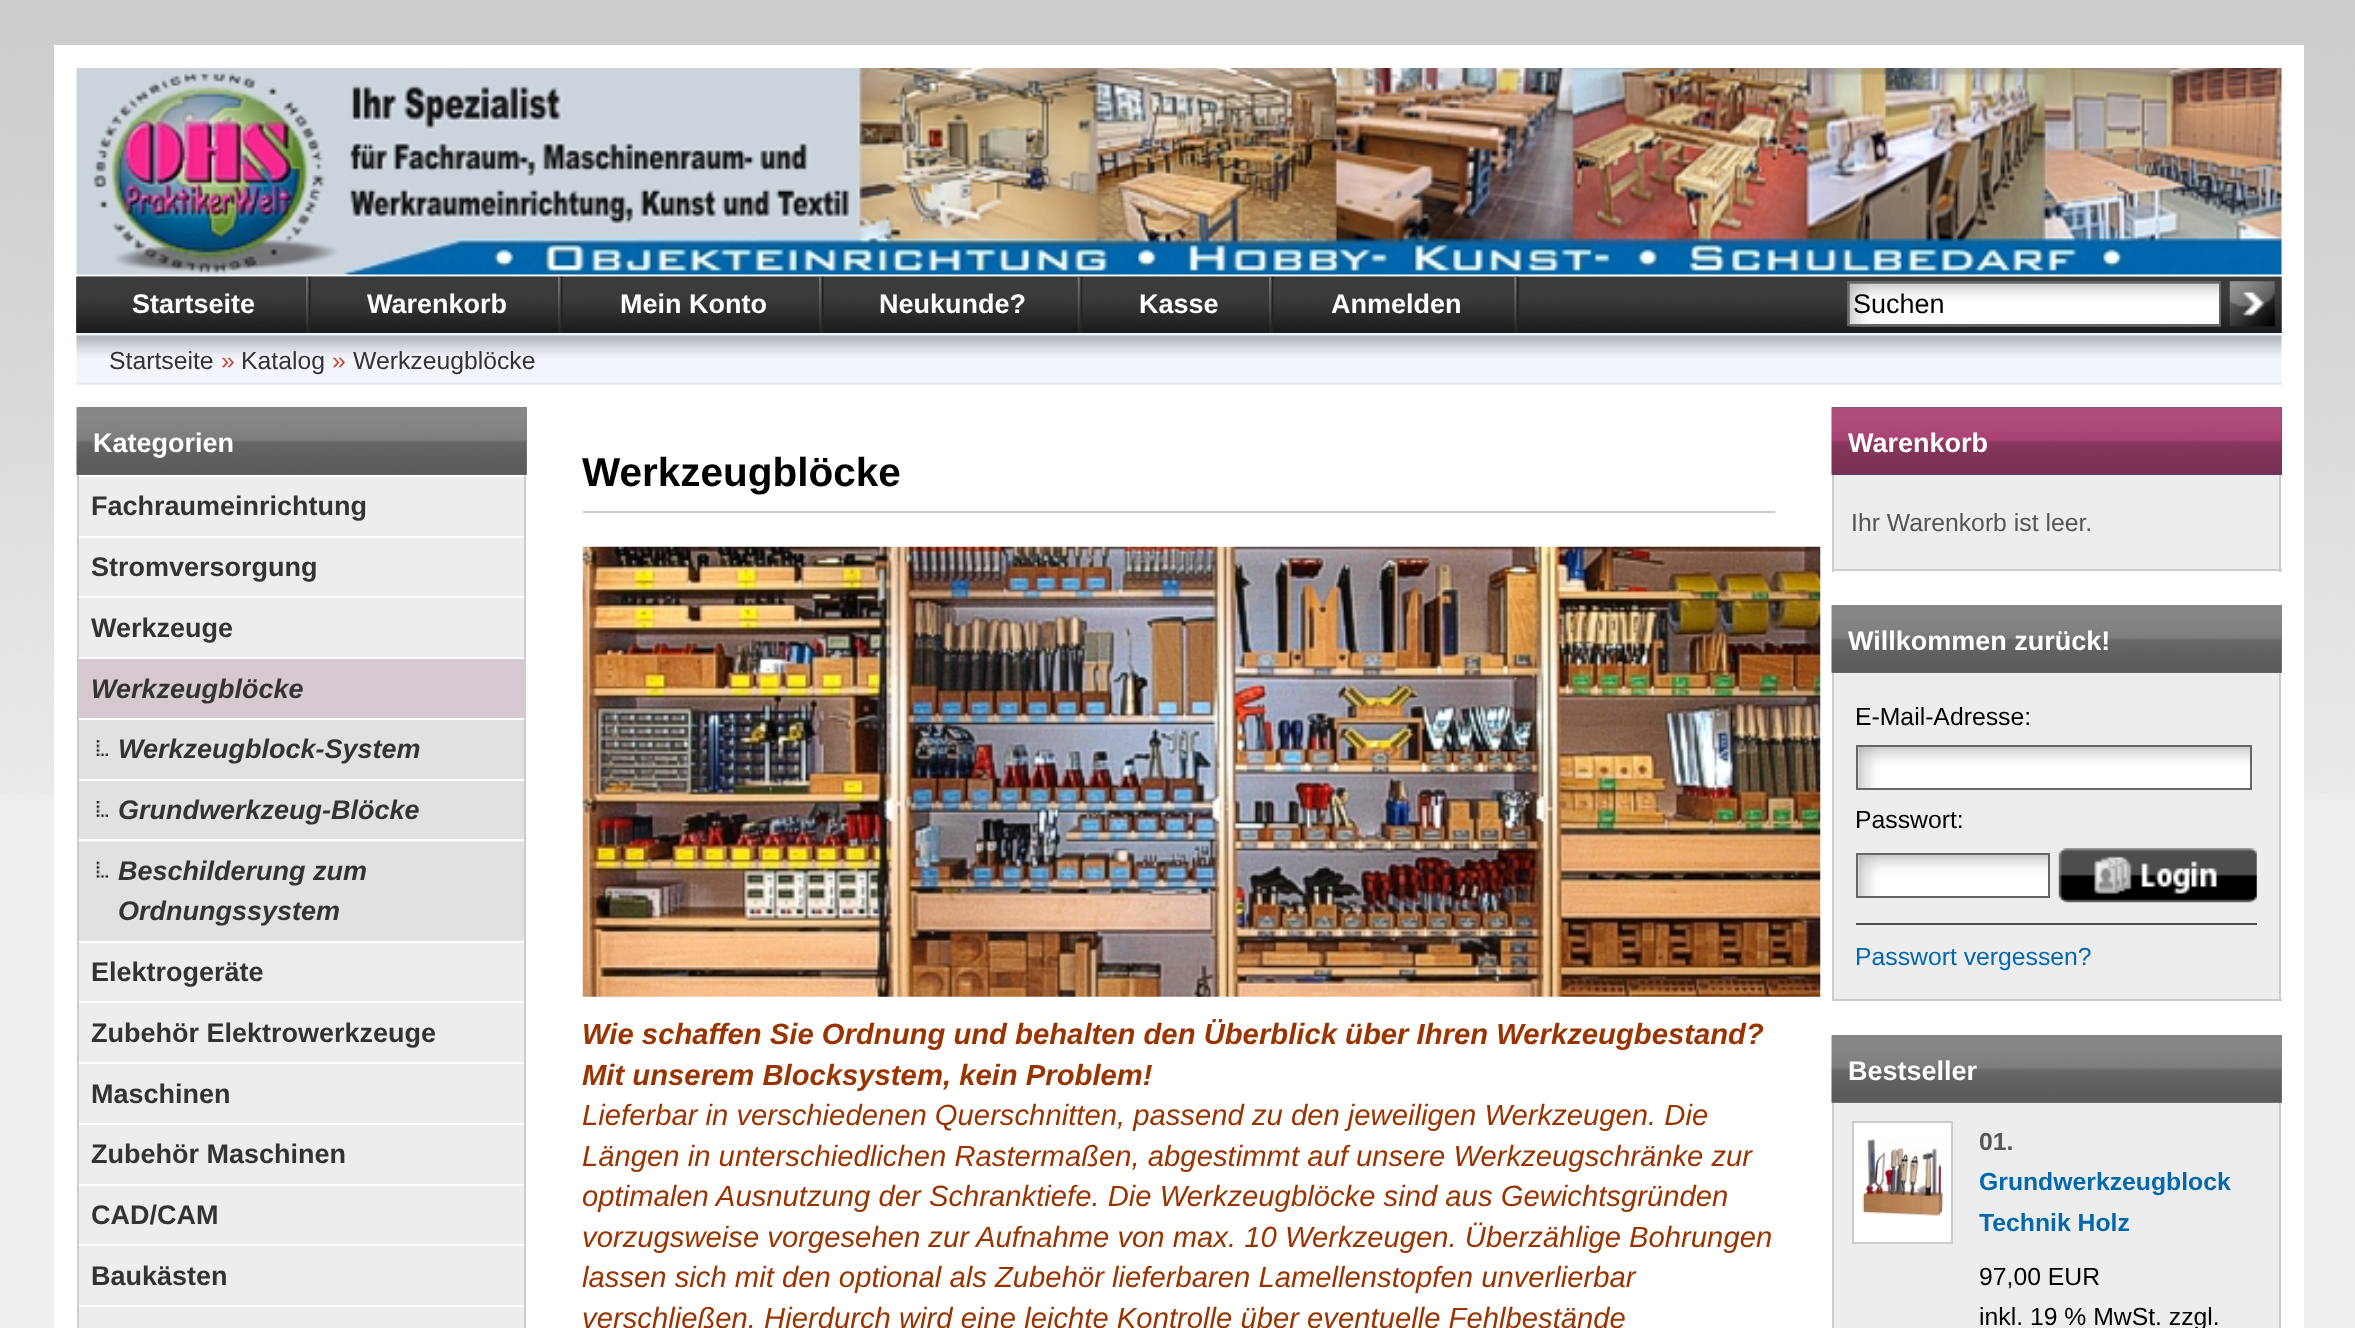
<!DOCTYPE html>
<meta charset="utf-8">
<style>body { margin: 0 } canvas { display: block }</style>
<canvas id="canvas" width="2355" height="1328"></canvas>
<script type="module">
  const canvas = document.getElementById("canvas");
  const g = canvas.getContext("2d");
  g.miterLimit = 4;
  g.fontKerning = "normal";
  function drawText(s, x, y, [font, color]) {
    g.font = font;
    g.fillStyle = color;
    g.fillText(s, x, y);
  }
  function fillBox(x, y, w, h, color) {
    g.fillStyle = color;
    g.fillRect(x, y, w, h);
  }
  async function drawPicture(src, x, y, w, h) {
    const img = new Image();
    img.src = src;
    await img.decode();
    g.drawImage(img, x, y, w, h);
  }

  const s1 = ["bold 27px Liberation Sans", "#FFFFFF"];
  const s2 = ["27px Liberation Sans", "#000000"];
  const s3 = ["24.75px Liberation Sans", "#333333"];
  const s4 = ["24.75px Liberation Sans", "#C64934"];
  const s5 = ["bold 27px Liberation Sans", "#333333"];
  const s6 = ["italic bold 27px Liberation Sans", "#333333"];
  const s7 = ["bold 40.5px Liberation Sans", "#000000"];
  const s8 = ["italic bold 29.25px Liberation Sans", "#993300"];
  const s9 = ["italic 29.25px Liberation Sans", "#993300"];
  const s10 = ["24.75px Liberation Sans", "#555555"];
  const s11 = ["24.75px Liberation Sans", "#000000"];
  const s12 = ["24.75px Liberation Sans", "#0368AE"];
  const s13 = ["bold 24.75px Liberation Sans", "#555555"];
  const s14 = ["bold 24.75px Liberation Sans", "#0368AE"];

  fillBox(0, 0, 2355, 1328, "#EEEEEE");
  await drawPicture("pic1.png", 0, 0, 2355, 794);
  fillBox(77, 68, 2205, 1260, "#FFFFFF");
  fillBox(2282, 45, 22, 1283, "#FFFFFF");
  fillBox(54, 45, 23, 1283, "#FFFFFF");
  await drawPicture("pic2.png", 76, 67, 2206, 208);
  fillBox(77, 45, 2205, 23, "#FFFFFF");
  await drawPicture("pic3.png", 76, 276, 2206, 57);
  await drawPicture("pic10.png", 76, 276, 2206, 57);
  await drawPicture("pic4.png", 76, 276, 1443, 57);
  await drawPicture("pic5.png", 306, 276, 5, 57);
  drawText("Startseite", 132, 313, s1);
  await drawPicture("pic6.png", 558, 276, 5, 57);
  drawText("Warenkorb", 367, 313, s1);
  await drawPicture("pic7.png", 819, 276, 5, 57);
  drawText("Mein Konto", 620, 313, s1);
  await drawPicture("pic8.png", 1077, 276, 6, 57);
  drawText("Neukunde?", 879, 313, s1);
  await drawPicture("pic7.png", 1269, 276, 5, 57);
  drawText("Kasse", 1139, 313, s1);
  await drawPicture("pic9.png", 1514, 276, 5, 57);
  drawText("Anmelden", 1331, 313, s1);
  await drawPicture("pic11.png", 1849, 283, 372, 44);
  g.strokeStyle = "#666666";
  g.lineWidth = 2;
  g.strokeRect(1848, 282, 372, 43);
  drawText("Suchen", 1853, 313, s2);
  await drawPicture("pic12.png", 2229, 281, 46, 46);
  await drawPicture("pic13.png", 76, 333, 2206, 52);
  drawText("Startseite", 109, 369, s3);
  drawText("»", 221, 369, s4);
  drawText("Katalog", 241, 369, s3);
  drawText("»", 332, 369, s4);
  drawText("Werkzeugblöcke", 353, 369, s3);
  fillBox(77, 407, 450, 68, "#868686");
  await drawPicture("pic14.png", 76, 407, 451, 68);
  drawText("Kategorien", 93, 452, s1);
  fillBox(79, 477, 445, 851, "#EDEDED");
  fillBox(524, 475, 2, 853, "#CCCCCC");
  fillBox(77, 475, 2, 853, "#CCCCCC");
  drawText("Fachraumeinrichtung", 91, 515, s5);
  fillBox(79, 536, 445, 2, "#FFFFFF");
  drawText("Stromversorgung", 91, 576, s5);
  fillBox(79, 596, 445, 2, "#FFFFFF");
  drawText("Werkzeuge", 91, 637, s5);
  fillBox(79, 657, 445, 2, "#FFFFFF");
  fillBox(79, 659, 445, 59, "#D7C9D1");
  drawText("Werkzeugblöcke", 91, 698, s6);
  fillBox(79, 718, 445, 2, "#FFFFFF");
  fillBox(79, 720, 445, 59, "#E1E1E1");
  await drawPicture("pic15.png", 96, 740, 12, 16);
  drawText("Werkzeugblock-System", 118, 758, s6);
  fillBox(79, 779, 445, 2, "#FFFFFF");
  fillBox(79, 781, 445, 58, "#E1E1E1");
  await drawPicture("pic16.png", 96, 801, 12, 16);
  drawText("Grundwerkzeug-Blöcke", 118, 819, s6);
  fillBox(79, 839, 445, 2, "#FFFFFF");
  fillBox(79, 842, 445, 99, "#E1E1E1");
  await drawPicture("pic17.png", 96, 861, 12, 17);
  drawText("Beschilderung zum", 118, 880, s6);
  drawText("Ordnungssystem", 118, 920, s6);
  fillBox(79, 941, 445, 2, "#FFFFFF");
  drawText("Elektrogeräte", 91, 981, s5);
  fillBox(79, 1001, 445, 2, "#FFFFFF");
  drawText("Zubehör Elektrowerkzeuge", 91, 1042, s5);
  fillBox(79, 1062, 445, 2, "#FFFFFF");
  drawText("Maschinen", 91, 1103, s5);
  fillBox(79, 1123, 445, 2, "#FFFFFF");
  drawText("Zubehör Maschinen", 91, 1163, s5);
  fillBox(79, 1184, 445, 2, "#FFFFFF");
  drawText("CAD/CAM", 91, 1224, s5);
  fillBox(79, 1244, 445, 2, "#FFFFFF");
  drawText("Baukästen", 91, 1285, s5);
  fillBox(79, 1305, 445, 2, "#FFFFFF");
  fillBox(583, 511, 1192, 2, "#CCCCCC");
  drawText("Werkzeugblöcke", 582, 486, s7);
  await drawPicture("pic18.png", 582, 546, 1239, 451);
  drawText("Wie schaffen Sie Ordnung und behalten den Überblick über Ihren Werkzeugbestand?", 582, 1044, s8);
  drawText("Mit unserem Blocksystem, kein Problem!", 582, 1085, s8);
  drawText("Lieferbar in verschiedenen Querschnitten, passend zu den jeweiligen Werkzeugen. Die", 582, 1125, s9);
  drawText("Längen in unterschiedlichen Rastermaßen, abgestimmt auf unsere Werkzeugschränke zur", 582, 1166, s9);
  drawText("optimalen Ausnutzung der Schranktiefe. Die Werkzeugblöcke sind aus Gewichtsgründen", 582, 1206, s9);
  drawText("vorzugsweise vorgesehen zur Aufnahme von max. 10 Werkzeugen. Überzählige Bohrungen", 582, 1247, s9);
  drawText("lassen sich mit den optional als Zubehör lieferbaren Lamellenstopfen unverlierbar", 582, 1287, s9);
  drawText("verschließen. Hierdurch wird eine leichte Kontrolle über eventuelle Fehlbestände", 582, 1328, s9);
  fillBox(1832, 407, 450, 68, "#0368AE");
  await drawPicture("pic19.png", 1831, 407, 451, 68);
  drawText("Warenkorb", 1848, 452, s1);
  fillBox(1834, 475, 445, 94, "#EDEDED");
  fillBox(2279, 475, 2, 97, "#CCCCCC");
  fillBox(1832, 569, 450, 2, "#CCCCCC");
  fillBox(1832, 475, 2, 97, "#CCCCCC");
  drawText("Ihr Warenkorb ist leer.", 1851, 531, s10);
  fillBox(1832, 605, 450, 68, "#868686");
  await drawPicture("pic20.png", 1831, 605, 451, 68);
  drawText("Willkommen zurück!", 1848, 650, s1);
  fillBox(1834, 673, 445, 326, "#EDEDED");
  fillBox(2279, 673, 2, 328, "#CCCCCC");
  fillBox(1832, 999, 450, 2, "#CCCCCC");
  fillBox(1832, 673, 2, 328, "#CCCCCC");
  drawText("E-Mail-Adresse:", 1855, 725, s11);
  await drawPicture("pic21.png", 1858, 747, 395, 43);
  g.strokeRect(1857, 746, 394, 43);
  drawText("Passwort:", 1855, 828, s11);
  await drawPicture("pic22.png", 1858, 855, 190, 41);
  g.strokeRect(1857, 854, 192, 43);
  await drawPicture("pic23.png", 2058, 848, 199, 55);
  fillBox(1856, 923, 401, 2, "#4E4E4F");
  drawText("Passwort vergessen?", 1855, 965, s12);
  fillBox(1832, 1035, 450, 68, "#868686");
  await drawPicture("pic24.png", 1831, 1035, 451, 68);
  drawText("Bestseller", 1848, 1080, s1);
  fillBox(1834, 1103, 445, 225, "#EDEDED");
  fillBox(2279, 1103, 2, 225, "#CCCCCC");
  fillBox(1832, 1103, 2, 225, "#CCCCCC");
  g.fillStyle = "#FFFFFF";
  g.beginPath();
  g.rect(1853, 1122, 99, 121);
  g.fill();
  g.strokeStyle = "#CCCCCC";
  g.stroke();
  await drawPicture("pic25.png", 1861, 1139, 83, 78);
  drawText("01.", 1979, 1150, s13);
  drawText("Grundwerkzeugblock", 1979, 1190, s14);
  drawText("Technik Holz", 1979, 1231, s14);
  drawText("97,00 EUR", 1979, 1285, s11);
  drawText("inkl. 19 % MwSt. zzgl.", 1979, 1325, s11);
</script>
